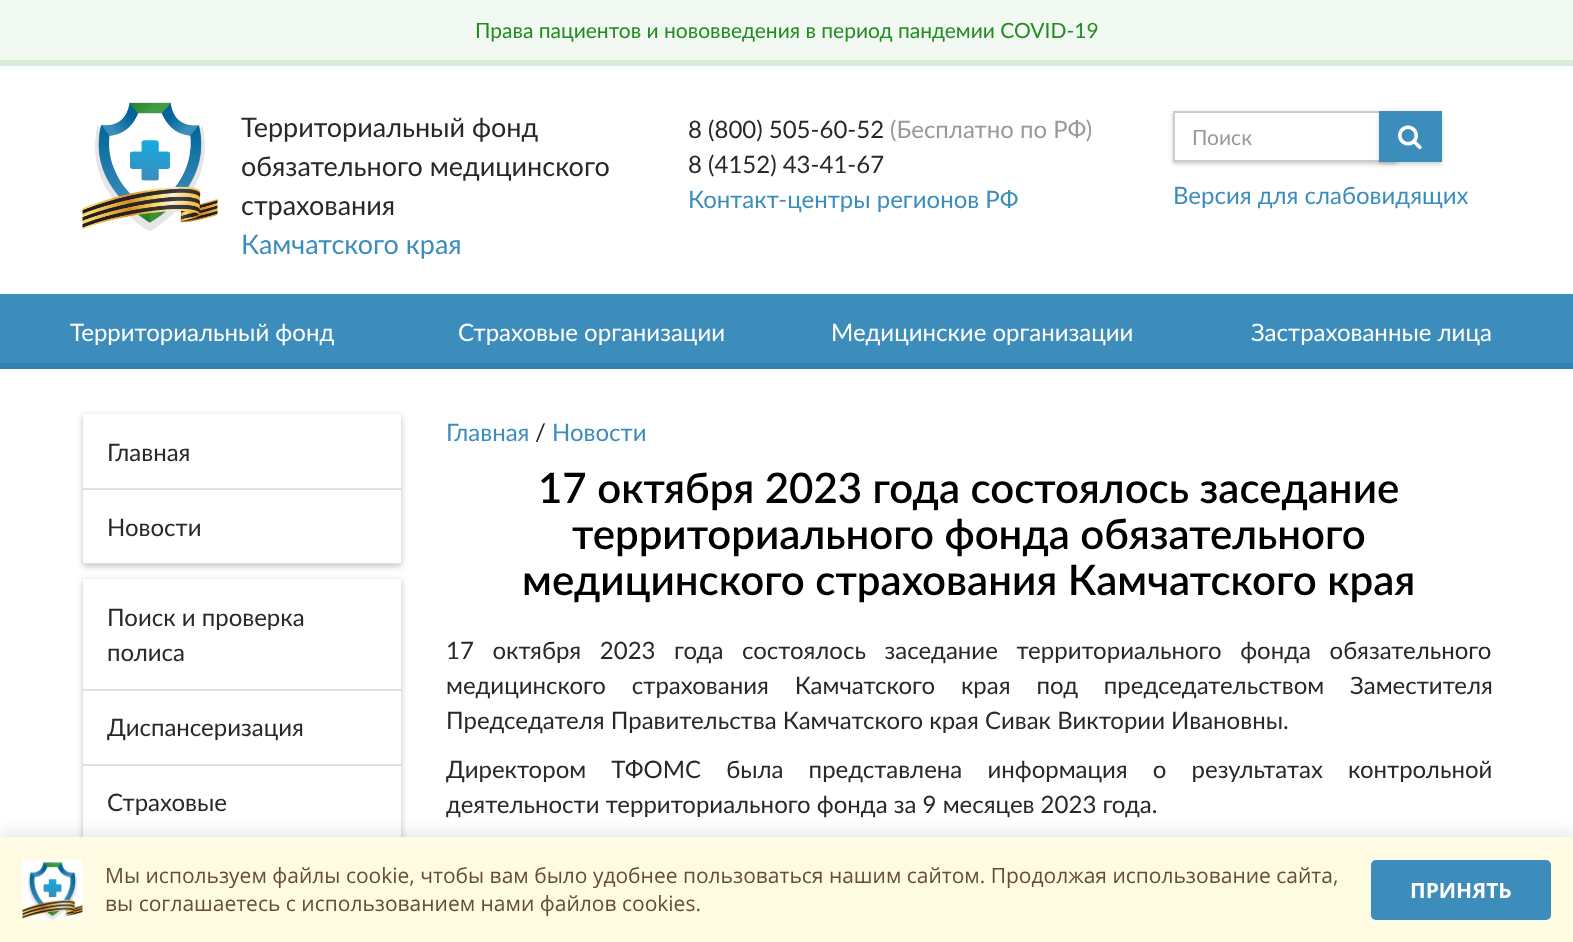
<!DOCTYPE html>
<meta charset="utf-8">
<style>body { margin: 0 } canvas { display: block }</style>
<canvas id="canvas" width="1573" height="942"></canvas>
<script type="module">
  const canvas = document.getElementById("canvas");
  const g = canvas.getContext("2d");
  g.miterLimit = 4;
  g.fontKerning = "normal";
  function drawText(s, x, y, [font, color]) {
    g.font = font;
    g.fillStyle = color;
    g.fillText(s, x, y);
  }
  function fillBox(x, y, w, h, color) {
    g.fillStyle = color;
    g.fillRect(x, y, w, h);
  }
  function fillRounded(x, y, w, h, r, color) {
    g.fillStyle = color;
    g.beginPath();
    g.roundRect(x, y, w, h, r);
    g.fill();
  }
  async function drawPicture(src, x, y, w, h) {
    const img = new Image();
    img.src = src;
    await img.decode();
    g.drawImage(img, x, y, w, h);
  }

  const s1 = ["21px Lato", "#228B22"];
  const s2 = ["27px Lato", "#282828"];
  const s3 = ["27px Lato", "#3C8DBC"];
  const s4 = ["24px Lato", "#282828"];
  const s5 = ["24px Lato", "#999999"];
  const s6 = ["24px Lato", "#3C8DBC"];
  const s7 = ["21px Lato", "#999999"];
  const s8 = ["24px Lato", "#FFFFFF"];
  const s9 = ["600 42px Lato", "#000000"];
  const s10 = ["21px Open Sans", "#654D3B"];
  const s11 = ["bold 21px Open Sans", "#FFFFFF"];

  fillBox(0, 0, 1573, 942, "#FFFFFF");
  fillBox(0, 0, 1573, 60, "#F2F8F2");
  fillBox(0, 60, 1573, 6, "#D9EBD9");
  drawText("Права пациентов и нововведения в период пандемии COVID-19", 475, 38, s1);
  await drawPicture("pic1.png", 82, 102, 136, 129);
  drawText("Территориальный фонд", 241, 137, s2);
  drawText("обязательного медицинского", 241, 176, s2);
  drawText("страхования", 241, 215, s2);
  drawText("Камчатского края", 241, 254, s3);
  drawText("8 (800) 505-60-52", 688, 138, s4);
  drawText("(Бесплатно по РФ)", 890, 138, s5);
  drawText("8 (4152) 43-41-67", 688, 173, s4);
  drawText("Контакт-центры регионов РФ", 688, 208, s6);
  g.fillStyle = "rgba(0, 0, 0, 0.2)";
  g.filter = "blur(2px)";
  g.beginPath();
  g.rect(1173, 113, 224, 51);
  g.fill();
  g.filter = "none";
  fillBox(1175, 113, 204, 47, "#FFFFFF");
  g.strokeStyle = "#CCCCCC";
  g.lineWidth = 2;
  g.strokeRect(1174, 112, 222, 49);
  drawText("Поиск", 1192, 145, s7);
  g.fillStyle = "rgba(0, 0, 0, 0.2)";
  g.filter = "blur(2px)";
  g.beginPath();
  g.rect(1379, 113, 63, 51);
  g.fill();
  g.filter = "none";
  fillBox(1379, 111, 63, 51, "#3C8DBC");
  await drawPicture("pic2.png", 1398, 125, 24, 25);
  drawText("Версия для слабовидящих", 1173, 204, s6);
  fillBox(0, 294, 1573, 69, "#3C8DBC");
  fillBox(0, 363, 1573, 6, "#2F84B4");
  drawText("Территориальный фонд", 70, 341, s8);
  drawText("Страховые организации", 458, 341, s8);
  drawText("Медицинские организации", 831, 341, s8);
  drawText("Застрахованные лица", 1251, 341, s8);
  g.fillStyle = "rgba(0, 0, 0, 0.25)";
  g.filter = "blur(3px)";
  g.beginPath();
  g.rect(83, 416, 318, 150);
  g.fill();
  g.filter = "none";
  fillBox(83, 414, 318, 149, "#FFFFFF");
  fillBox(83, 488, 318, 2, "#E0E0E0");
  drawText("Главная", 107, 461, s4);
  fillBox(83, 563, 318, 1, "#E0E0E0");
  drawText("Новости", 107, 536, s4);
  g.fillStyle = "rgba(0, 0, 0, 0.25)";
  g.filter = "blur(3px)";
  g.beginPath();
  g.rect(83, 581, 318, 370);
  g.fill();
  g.filter = "none";
  fillBox(83, 579, 318, 258, "#FFFFFF");
  fillBox(83, 689, 318, 2, "#E0E0E0");
  drawText("Поиск и проверка", 107, 626, s4);
  drawText("полиса", 107, 661, s4);
  fillBox(83, 764, 318, 2, "#E0E0E0");
  drawText("Диспансеризация", 107, 736, s4);
  drawText("Страховые", 107, 811, s4);
  drawText("Главная", 446, 441, s6);
  drawText("/", 535, 441, s4);
  drawText("Новости", 552, 441, s6);
  drawText("17 октября 2023 года состоялось заседание", 538, 503, s9);
  drawText("территориального фонда обязательного", 572, 549, s9);
  drawText("медицинского страхования Камчатского края", 522, 595, s9);
  g.wordSpacing = "12.5px";
  drawText("17 октября 2023 года состоялось заседание территориального фонда обязательного", 446, 659, s4);
  g.wordSpacing = "19.75px";
  drawText("медицинского страхования Камчатского края под председательством Заместителя", 446, 694, s4);
  g.wordSpacing = "0px";
  drawText("Председателя Правительства Камчатского края Сивак Виктории Ивановны.", 446, 729, s4);
  g.wordSpacing = "19px";
  drawText("Директором ТФОМС была представлена информация о результатах контрольной", 446, 778, s4);
  g.wordSpacing = "0px";
  drawText("деятельности территориального фонда за 9 месяцев 2023 года.", 446, 813, s4);
  g.fillStyle = "rgba(0, 0, 0, 0.1)";
  g.filter = "blur(7.5px)";
  g.beginPath();
  g.rect(0, 833, 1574, 105);
  g.fill();
  g.filter = "none";
  fillBox(0, 837, 1573, 105, "#FFFAE2");
  await drawPicture("pic3.png", 22, 859, 61, 61);
  drawText("Мы используем файлы cookie, чтобы вам было удобнее пользоваться нашим сайтом. Продолжая использование сайта,", 105, 883, s10);
  drawText("вы соглашаетесь c использованием нами файлов cookies.", 105, 911, s10);
  fillRounded(1371, 860, 180, 60, 5, "#3C8DBC");
  drawText("ПРИНЯТЬ", 1410, 898, s11);
</script>
